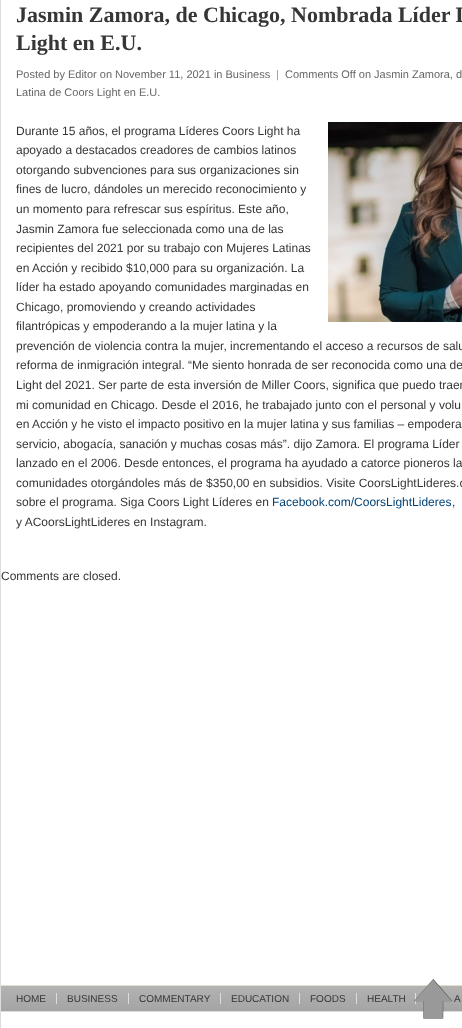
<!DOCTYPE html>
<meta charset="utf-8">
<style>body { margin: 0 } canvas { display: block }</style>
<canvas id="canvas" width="462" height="1028"></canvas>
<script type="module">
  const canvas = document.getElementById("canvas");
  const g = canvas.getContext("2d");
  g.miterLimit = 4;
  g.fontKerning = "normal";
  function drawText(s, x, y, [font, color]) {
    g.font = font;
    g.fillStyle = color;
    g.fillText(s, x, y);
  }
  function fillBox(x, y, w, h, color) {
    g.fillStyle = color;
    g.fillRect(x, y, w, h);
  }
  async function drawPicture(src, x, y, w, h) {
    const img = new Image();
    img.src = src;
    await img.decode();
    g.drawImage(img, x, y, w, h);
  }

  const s1 = ["bold 22px Liberation Serif", "#363636"];
  const s2 = ["11px Liberation Sans", "#666666"];
  const s3 = ["11px Liberation Sans", "#999999"];
  const s4 = ["12px Liberation Sans", "#363636"];
  const s5 = ["12px Liberation Sans", "#004276"];
  const s6 = ["10px Liberation Sans", "#363636"];

  fillBox(0, 0, 462, 1028, "#FFFFFF");
  g.strokeStyle = "#DDDDDD";
  g.strokeRect(0.5, -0.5, 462, 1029);
  fillBox(1, 985, 461, 1, "#E2E1CD");
  drawText("Jasmin Zamora, de Chicago, Nombrada Líder L", 16, 22, s1);
  drawText("Light en E.U.", 16, 50, s1);
  drawText("Posted by Editor on November 11, 2021 in Business", 16, 78, s2);
  drawText("|", 276, 78, s3);
  drawText("Comments Off on Jasmin Zamora, d", 285, 78, s2);
  drawText("Latina de Coors Light en E.U.", 16, 96, s2);
  await drawPicture("pic1.png", 328, 122, 134, 200);
  drawText("Durante 15 años, el programa Líderes Coors Light ha", 16, 135, s4);
  drawText("apoyado a destacados creadores de cambios latinos", 16, 154, s4);
  drawText("otorgando subvenciones para sus organizaciones sin", 16, 174, s4);
  drawText("fines de lucro, dándoles un merecido reconocimiento y", 16, 193, s4);
  drawText("un momento para refrescar sus espíritus. Este año,", 16, 213, s4);
  drawText("Jasmin Zamora fue seleccionada como una de las", 16, 233, s4);
  drawText("recipientes del 2021 por su trabajo con Mujeres Latinas", 16, 252, s4);
  drawText("en Acción y recibido $10,000 para su organización. La", 16, 272, s4);
  drawText("líder ha estado apoyando comunidades marginadas en", 16, 291, s4);
  drawText("Chicago, promoviendo y creando actividades", 16, 311, s4);
  drawText("filantrópicas y empoderando a la mujer latina y la", 16, 330, s4);
  drawText("prevención de violencia contra la mujer, incrementando el acceso a recursos de salu", 16, 350, s4);
  drawText("reforma de inmigración integral. “Me siento honrada de ser reconocida como una de", 16, 369, s4);
  drawText("Light del 2021. Ser parte de esta inversión de Miller Coors, significa que puedo traer", 16, 389, s4);
  drawText("mi comunidad en Chicago. Desde el 2016, he trabajado junto con el personal y volu", 16, 409, s4);
  drawText("en Acción y he visto el impacto positivo en la mujer latina y sus familias – empodera", 16, 428, s4);
  drawText("servicio, abogacía, sanación y muchas cosas más”. dijo Zamora. El programa Líder", 16, 448, s4);
  drawText("lanzado en el 2006. Desde entonces, el programa ha ayudado a catorce pioneros la", 16, 467, s4);
  drawText("comunidades otorgándoles más de $350,00 en subsidios. Visite CoorsLightLideres.c", 16, 487, s4);
  drawText("sobre el programa. Siga Coors Light Líderes en", 16, 506, s4);
  drawText("Facebook.com/CoorsLightLideres", 272, 506, s5);
  drawText(",", 452, 506, s4);
  drawText("y ACoorsLightLideres en Instagram.", 16, 526, s4);
  drawText("Comments are closed.", 1, 580, s4);
  await drawPicture("pic2.png", 1, 986, 461, 25);
  fillBox(1, 1011, 461, 1, "#DDDDDD");
  drawText("HOME", 16, 1002, s6);
  fillBox(56, 993, 1, 11, "#DDDDDD");
  drawText("BUSINESS", 67, 1002, s6);
  fillBox(128, 993, 1, 11, "#DDDDDD");
  drawText("COMMENTARY", 139, 1002, s6);
  fillBox(220, 993, 1, 11, "#DDDDDD");
  drawText("EDUCATION", 231, 1002, s6);
  fillBox(299, 993, 1, 11, "#DDDDDD");
  drawText("FOODS", 310, 1002, s6);
  fillBox(356, 993, 1, 11, "#DDDDDD");
  drawText("HEALTH", 367, 1002, s6);
  fillBox(415, 993, 1, 11, "#DDDDDD");
  drawText("A", 454, 1002, s6);
  await drawPicture("pic3.png", 414, 979, 39, 40);
</script>
